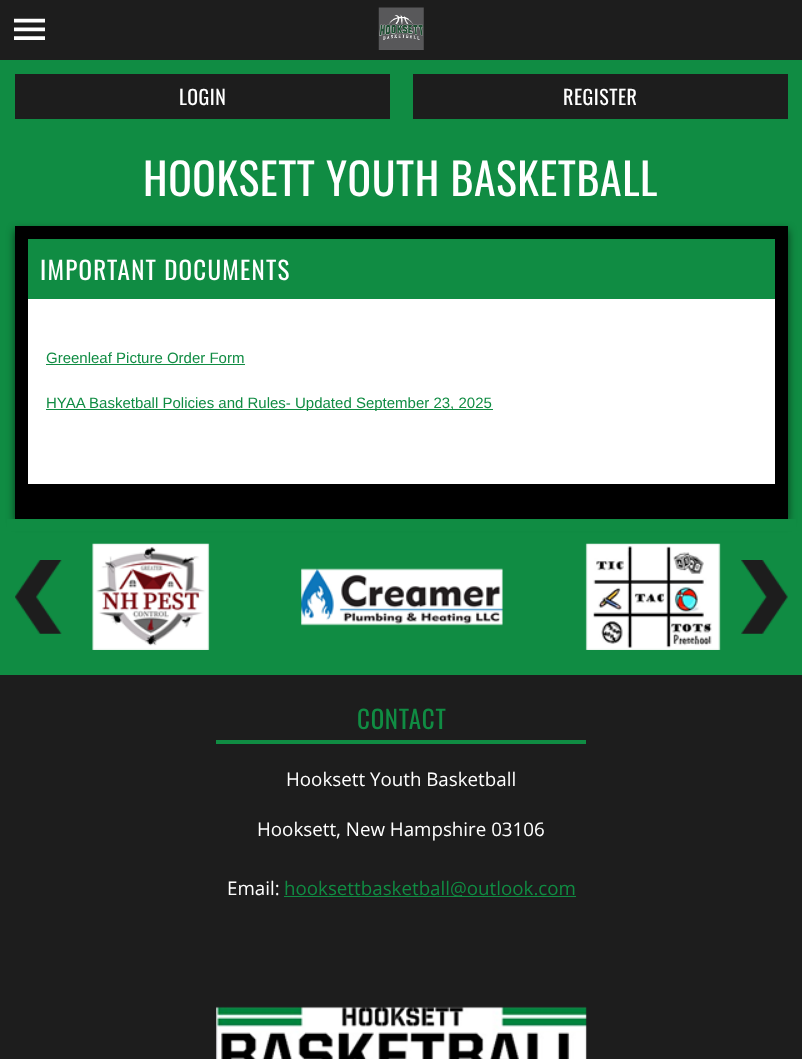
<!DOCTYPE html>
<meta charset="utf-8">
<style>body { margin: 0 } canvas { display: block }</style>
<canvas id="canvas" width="802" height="1059"></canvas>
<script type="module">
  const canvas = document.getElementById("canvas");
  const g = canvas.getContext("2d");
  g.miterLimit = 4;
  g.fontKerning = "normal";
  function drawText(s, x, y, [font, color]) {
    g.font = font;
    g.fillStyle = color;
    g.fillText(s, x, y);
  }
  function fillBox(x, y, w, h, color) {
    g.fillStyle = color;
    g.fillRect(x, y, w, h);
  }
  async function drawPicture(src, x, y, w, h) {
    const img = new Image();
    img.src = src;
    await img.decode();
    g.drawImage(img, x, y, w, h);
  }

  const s1 = ["20px Oswald", "#FFFFFF"];
  const s2 = ["43.75px Oswald", "#FFFFFF"];
  const s3 = ["25px Oswald", "#FFFFFF"];
  const s4 = ["15px Liberation Sans", "#108C43"];
  const s5 = ["25px Oswald", "#108C43"];
  const s6 = ["18.75px Open Sans", "#FFFFFF"];
  const s7 = ["18.75px Open Sans", "#108C43"];

  fillBox(0, 0, 802, 1059, "#108C43");
  fillBox(0, 0, 802, 60, "#1D1D1D");
  await drawPicture("pic1.png", 14, 18, 31, 22);
  await drawPicture("pic2.png", 378, 7, 46, 43);
  fillBox(15, 74, 375, 45, "#1D1D1D");
  g.letterSpacing = "0.5px";
  drawText("LOGIN", 179, 105, s1);
  fillBox(413, 74, 375, 45, "#1D1D1D");
  drawText("REGISTER", 563, 105, s1);
  g.letterSpacing = "0.6px";
  drawText("HOOKSETT YOUTH BASKETBALL", 143, 196, s2);
  g.fillStyle = "rgba(0, 0, 0, 0.61)";
  g.filter = "blur(4.5px)";
  g.beginPath();
  g.rect(15, 230, 773, 293);
  g.fill();
  g.filter = "none";
  fillBox(15, 226, 773, 293, "#000000");
  fillBox(28, 239, 747, 60, "#108C43");
  g.letterSpacing = "1.25px";
  drawText("IMPORTANT DOCUMENTS", 40, 280, s3);
  fillBox(28, 299, 747, 185, "#FFFFFF");
  g.letterSpacing = "0px";
  drawText("Greenleaf Picture Order Form", 46, 363, s4);
  fillBox(46, 364, 199, 1, "#108C43");
  fillBox(46, 409, 447, 1, "#108C43");
  drawText("HYAA Basketball Policies and Rules- Updated September 23, 2025", 46, 408, s4);
  fillBox(7, 519, 789, 12, "#108C43");
  await drawPicture("pic3.png", 15, 560, 47, 74);
  await drawPicture("pic4.png", 92, 543, 118, 107);
  await drawPicture("pic5.png", 301, 568, 202, 58);
  await drawPicture("pic6.png", 585, 543, 136, 107);
  await drawPicture("pic7.png", 741, 560, 47, 74);
  fillBox(0, 675, 802, 384, "#1D1D1D");
  g.letterSpacing = "0.75px";
  drawText("CONTACT", 357, 729, s5);
  fillBox(216, 740, 370, 4, "#108C43");
  g.letterSpacing = "0px";
  drawText("Hooksett Youth Basketball", 286, 786, s6);
  drawText("Hooksett, New Hampshire 03106", 257, 836, s6);
  drawText("Email:", 227, 895, s6);
  fillBox(284, 896, 292, 1, "#108C43");
  drawText("hooksettbasketball@outlook.com", 284, 895, s7);
  await drawPicture("pic8.png", 216, 1006, 371, 53);
</script>
